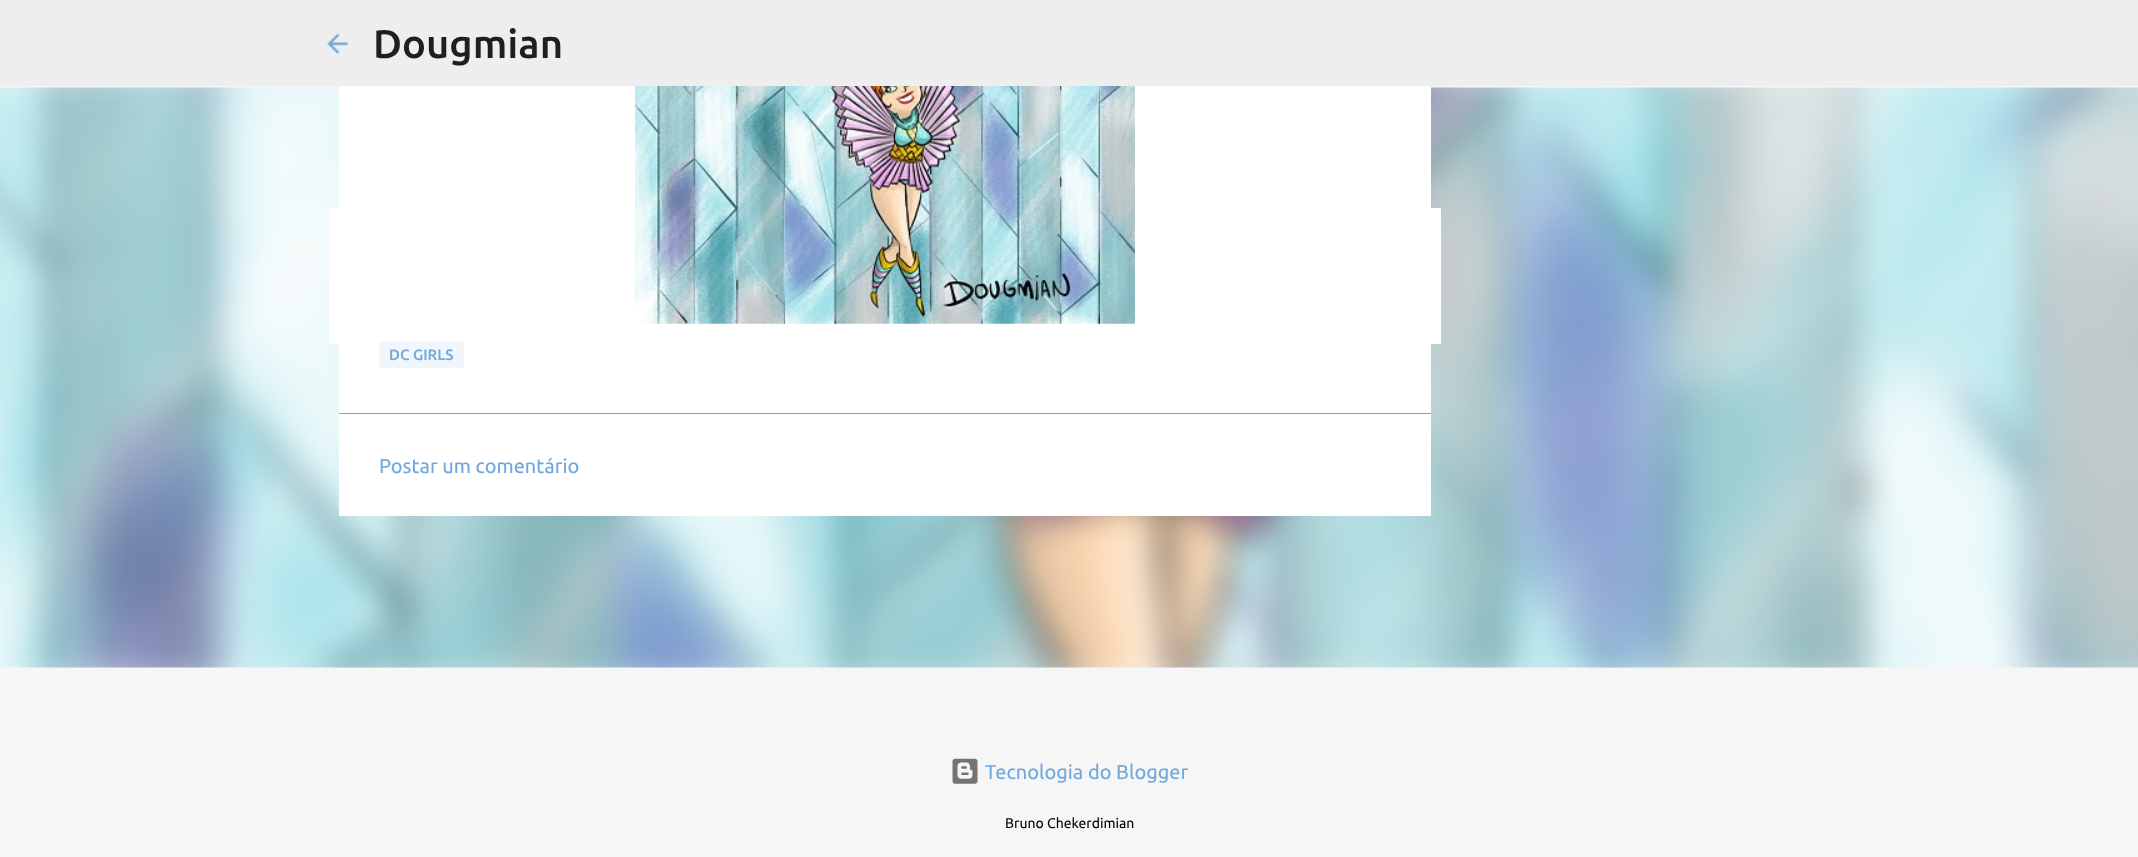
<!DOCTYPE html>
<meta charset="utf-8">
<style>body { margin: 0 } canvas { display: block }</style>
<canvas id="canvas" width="2138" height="857"></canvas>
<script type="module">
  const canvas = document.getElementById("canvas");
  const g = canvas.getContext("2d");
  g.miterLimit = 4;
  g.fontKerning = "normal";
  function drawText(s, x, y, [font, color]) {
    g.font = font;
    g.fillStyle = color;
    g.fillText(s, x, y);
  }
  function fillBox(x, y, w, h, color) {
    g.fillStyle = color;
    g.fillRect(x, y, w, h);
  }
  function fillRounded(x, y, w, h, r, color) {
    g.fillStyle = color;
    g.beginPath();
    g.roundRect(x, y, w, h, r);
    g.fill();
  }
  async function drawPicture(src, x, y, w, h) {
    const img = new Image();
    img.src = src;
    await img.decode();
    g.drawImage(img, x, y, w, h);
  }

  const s1 = ["500 40px Ubuntu", "#1F1F1F"];
  const s2 = ["500 15px Ubuntu", "#6FA8DC"];
  const s3 = ["20px Ubuntu", "#6FA8DC"];
  const s4 = ["14px Ubuntu", "#000000"];

  fillBox(0, 0, 2138, 857, "#F6F6F6");
  fillBox(0, 0, 2138, 86, "#EEEEEE");
  await drawPicture("pic1.png", 327, 33, 21, 21);
  drawText("Dougmian", 373, 58, s1);
  await drawPicture("pic3.png", 0, 87, 2138, 581);
  fillBox(329, 208, 1112, 136, "#FFFFFF");
  fillBox(339, 86, 1092, 327, "#FFFFFF");
  await drawPicture("pic2.png", 635, 86, 500, 238);
  fillRounded(379, 341, 85, 27, 2.5, "#F1F6FC");
  drawText("DC GIRLS", 389, 360, s2);
  fillBox(339, 414, 1092, 102, "#FFFFFF");
  fillBox(339, 413, 1092, 1, "#6FA8DC");
  drawText("Postar um comentário", 379, 473, s3);
  await drawPicture("pic4.png", 952, 758, 26, 26);
  drawText("Tecnologia do Blogger", 985, 779, s3);
  drawText("Bruno Chekerdimian", 1005, 828, s4);
</script>
